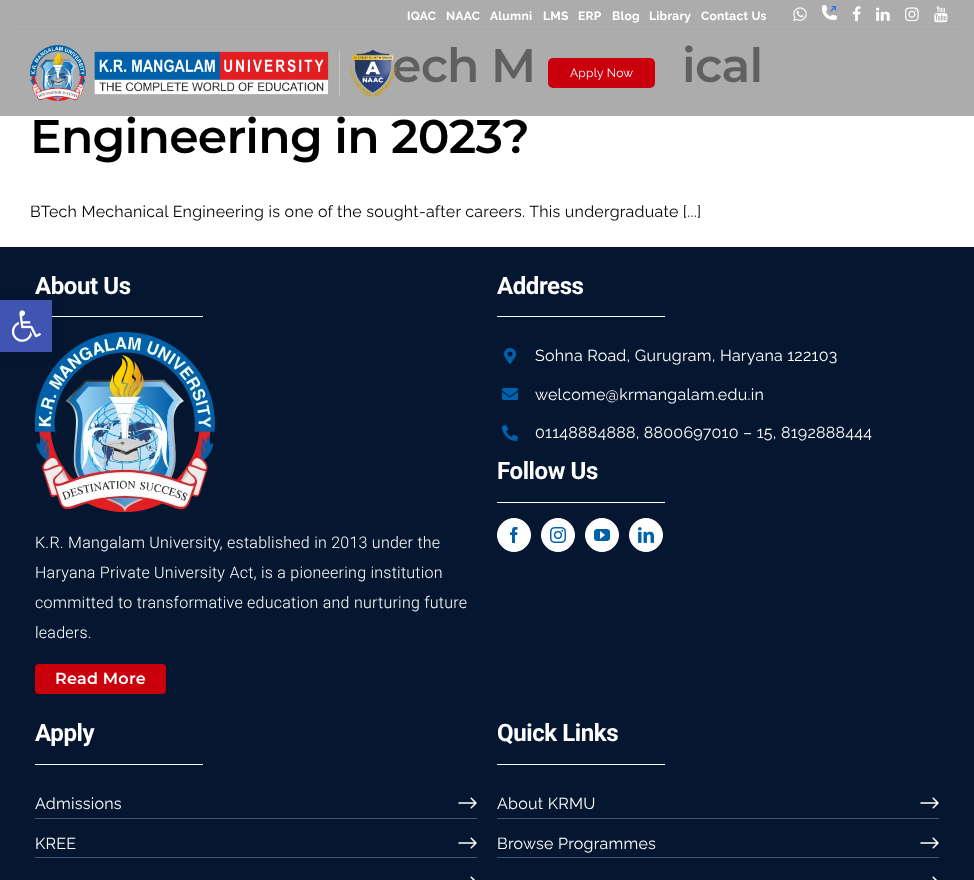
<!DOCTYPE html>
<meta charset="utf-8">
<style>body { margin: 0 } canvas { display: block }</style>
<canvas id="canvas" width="974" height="880"></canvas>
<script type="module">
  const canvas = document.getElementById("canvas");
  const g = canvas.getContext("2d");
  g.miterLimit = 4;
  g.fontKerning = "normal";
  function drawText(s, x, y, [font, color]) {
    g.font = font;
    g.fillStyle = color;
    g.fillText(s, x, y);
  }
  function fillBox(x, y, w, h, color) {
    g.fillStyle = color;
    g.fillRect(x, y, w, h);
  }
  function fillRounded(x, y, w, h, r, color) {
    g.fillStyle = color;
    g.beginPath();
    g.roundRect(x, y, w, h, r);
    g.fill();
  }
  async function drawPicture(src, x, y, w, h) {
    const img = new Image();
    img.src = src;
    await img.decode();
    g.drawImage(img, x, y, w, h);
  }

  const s1 = ["bold 12px Raleway", "#FFFFFF"];
  const s2 = ["600 47.25px Montserrat", "#606060"];
  const s3 = ["12px Raleway", "#FFFFFF"];
  const s4 = ["600 47.25px Montserrat", "#000000"];
  const s5 = ["16px Raleway", "#000000"];
  const s6 = ["bold 24px Roboto", "#FFFFFF"];
  const s7 = ["300 16px Roboto", "#FFFFFF"];
  const s8 = ["600 16px Montserrat", "#FFFFFF"];
  const s9 = ["16px Raleway", "#FFFFFF"];

  fillBox(0, 0, 974, 880, "#FFFFFF");
  fillBox(0, 0, 974, 116, "#ACACAC");
  fillBox(15, 29, 944, 1, "#A6A6A6");
  g.letterSpacing = "0.25px";
  drawText("IQAC", 407, 20, s1);
  drawText("NAAC", 446, 20, s1);
  drawText("Alumni", 490, 20, s1);
  drawText("LMS", 543, 20, s1);
  drawText("ERP", 578, 20, s1);
  drawText("Blog", 612, 20, s1);
  drawText("Library", 649, 20, s1);
  drawText("Contact Us", 701, 20, s1);
  await drawPicture("pic1.png", 793, 7, 14, 15);
  await drawPicture("pic2.png", 822, 5, 15, 15);
  await drawPicture("pic3.png", 852, 6, 9, 16);
  await drawPicture("pic4.png", 876, 7, 14, 14);
  await drawPicture("pic5.png", 905, 7, 14, 15);
  await drawPicture("pic6.png", 934, 6, 14, 17);
  g.letterSpacing = "-0.75px";
  drawText("ech M", 392, 82, s2);
  await drawPicture("pic7.png", 30, 45, 366, 56);
  fillRounded(548, 58, 107, 30, 5, "#CB000D");
  g.letterSpacing = "0.25px";
  drawText("Apply Now", 570, 77, s3);
  g.letterSpacing = "-0.75px";
  drawText("ical", 682, 82, s2);
  drawText("Engineering in 2023?", 30, 153, s4);
  g.letterSpacing = "0.25px";
  drawText("BTech Mechanical Engineering is one of the sought-after careers. This undergraduate [...]", 30, 217, s5);
  fillBox(0, 247, 974, 633, "#051630");
  fillBox(52, 316, 151, 1, "#FEFEFE");
  g.letterSpacing = "-0.4px";
  drawText("About Us", 35, 294, s6);
  await drawPicture("pic8.png", 35, 332, 180, 180);
  g.letterSpacing = "0.25px";
  drawText("K.R. Mangalam University, established in 2013 under the", 35, 548, s7);
  drawText("Haryana Private University Act, is a pioneering institution", 35, 578, s7);
  drawText("committed to transformative education and nurturing future", 35, 608, s7);
  drawText("leaders.", 35, 638, s7);
  fillRounded(35, 664, 131, 30, 4, "#CB000D");
  drawText("Read More", 55, 684, s8);
  fillBox(497, 316, 168, 1, "#FEFEFE");
  g.letterSpacing = "-0.4px";
  drawText("Address", 497, 294, s6);
  await drawPicture("pic9.png", 504, 348, 12, 16);
  g.letterSpacing = "0.25px";
  drawText("Sohna Road, Gurugram, Haryana 122103", 535, 361, s9);
  await drawPicture("pic10.png", 502, 388, 16, 12);
  drawText("welcome@krmangalam.edu.in", 535, 400, s9);
  await drawPicture("pic11.png", 502, 425, 16, 16);
  drawText("01148884888, 8800697010 – 15, 8192888444", 535, 438, s9);
  fillBox(497, 502, 168, 1, "#FEFEFE");
  g.letterSpacing = "-0.4px";
  drawText("Follow Us", 497, 479, s6);
  g.beginPath();
  g.arc(514, 535, 16.5, 0, Math.PI * 2);
  g.fill();
  g.strokeStyle = "#FFFFFF";
  g.stroke();
  await drawPicture("pic12.png", 510, 527, 8, 16);
  g.beginPath();
  g.arc(558, 535, 16.5, 0, Math.PI * 2);
  g.fill();
  g.stroke();
  await drawPicture("pic13.png", 550, 527, 16, 16);
  g.beginPath();
  g.arc(602, 535, 16.5, 0, Math.PI * 2);
  g.fill();
  g.stroke();
  await drawPicture("pic14.png", 594, 529, 16, 12);
  g.beginPath();
  g.arc(646, 535, 16.5, 0, Math.PI * 2);
  g.fill();
  g.stroke();
  await drawPicture("pic15.png", 638, 527, 16, 16);
  fillBox(35, 764, 168, 1, "#FEFEFE");
  drawText("Apply", 35, 741, s6);
  fillBox(35, 818, 442, 1, "#485568");
  g.letterSpacing = "0.25px";
  drawText("Admissions", 35, 809, s9);
  await drawPicture("pic16.png", 458, 797, 19, 12);
  fillBox(35, 857, 442, 1, "#485568");
  drawText("KREE", 35, 849, s9);
  await drawPicture("pic16.png", 458, 837, 19, 12);
  await drawPicture("pic17.png", 470, 876, 5, 4);
  fillBox(497, 764, 168, 1, "#FEFEFE");
  g.letterSpacing = "-0.4px";
  drawText("Quick Links", 497, 741, s6);
  fillBox(497, 818, 442, 1, "#485568");
  g.letterSpacing = "0.25px";
  drawText("About KRMU", 497, 809, s9);
  await drawPicture("pic16.png", 920, 797, 19, 12);
  fillBox(497, 857, 442, 1, "#485568");
  drawText("Browse Programmes", 497, 849, s9);
  await drawPicture("pic16.png", 920, 837, 19, 12);
  await drawPicture("pic17.png", 932, 876, 5, 4);
  g.fillStyle = "rgba(0, 0, 0, 0.1)";
  g.filter = "blur(5px)";
  g.beginPath();
  g.rect(0, 300, 52, 52);
  g.fill();
  g.filter = "none";
  fillBox(0, 300, 52, 52, "#4054B2");
  await drawPicture("pic18.png", 11, 310, 30, 32);
</script>
